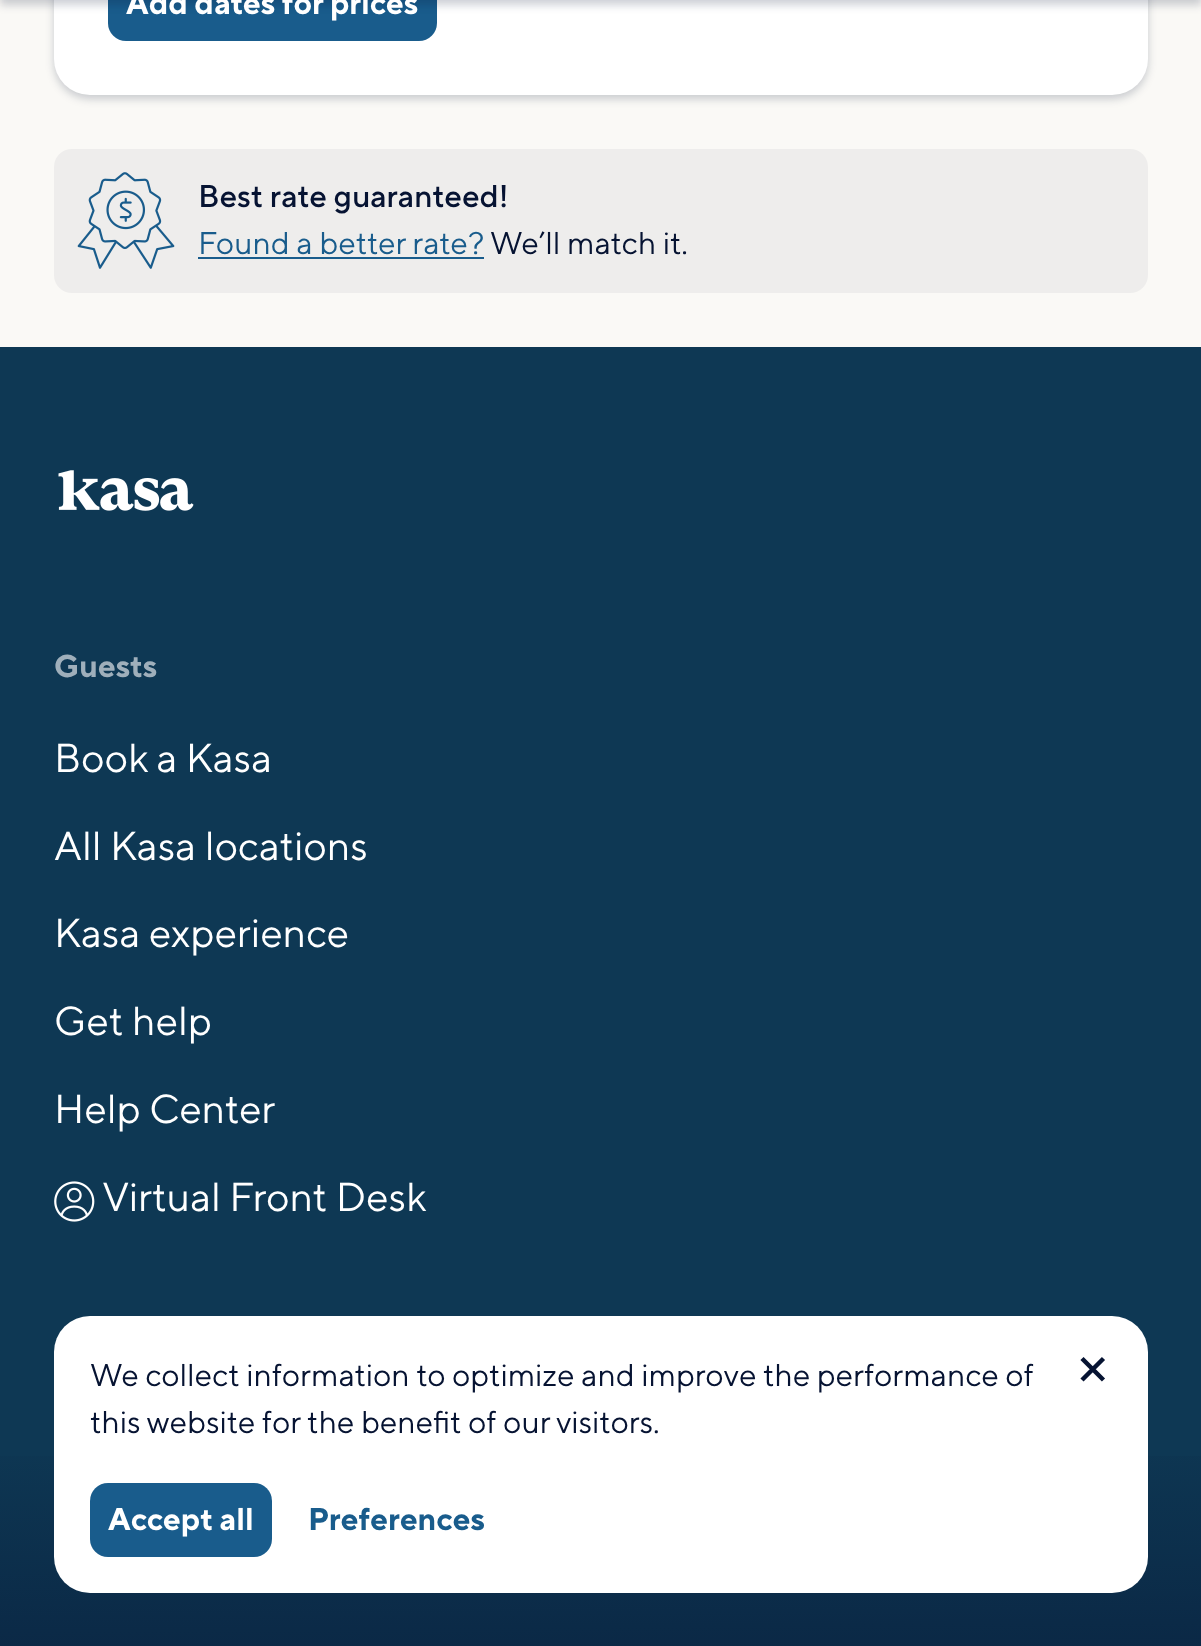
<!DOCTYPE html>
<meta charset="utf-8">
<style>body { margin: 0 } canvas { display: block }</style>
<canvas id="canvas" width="1201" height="1646"></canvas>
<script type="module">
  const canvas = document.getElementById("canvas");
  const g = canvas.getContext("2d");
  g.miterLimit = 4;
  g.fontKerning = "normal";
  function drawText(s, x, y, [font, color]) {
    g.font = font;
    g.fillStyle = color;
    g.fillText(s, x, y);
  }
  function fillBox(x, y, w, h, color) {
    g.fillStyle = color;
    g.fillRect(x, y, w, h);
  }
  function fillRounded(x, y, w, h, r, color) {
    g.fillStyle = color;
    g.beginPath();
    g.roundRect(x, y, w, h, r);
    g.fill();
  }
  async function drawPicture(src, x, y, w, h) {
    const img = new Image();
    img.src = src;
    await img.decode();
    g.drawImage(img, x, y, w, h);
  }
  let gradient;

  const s1 = ["bold 31.5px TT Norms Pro", "#FFFFFF"];
  const s2 = ["500 31.5px TT Norms Pro", "#061332"];
  const s3 = ["31.5px TT Norms Pro", "#195C8C"];
  const s4 = ["31.5px TT Norms Pro", "#061332"];
  const s5 = ["bold 31.5px TT Norms Pro", "#9FAFBB"];
  const s6 = ["40.5px TT Norms Pro", "#FFFFFF"];
  const s7 = ["bold 31.5px TT Norms Pro", "#195C8C"];

  fillBox(0, 0, 1201, 1646, "#FAF9F6");
  g.fillStyle = "rgba(6, 19, 50, 0.2)";
  g.filter = "blur(4.5px)";
  g.beginPath();
  g.roundRect(54, -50, 1094, 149, 36);
  g.fill();
  g.filter = "none";
  fillRounded(54, -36, 1094, 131, 36, "#FFFFFF");
  fillRounded(108, -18, 329, 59, 18, "#195C8C");
  g.fillStyle = "rgba(6, 19, 50, 0.2)";
  g.filter = "blur(4.5px)";
  g.beginPath();
  g.rect(0, -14, 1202, 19);
  g.fill();
  g.filter = "none";
  drawText("Add dates for prices", 126, 14, s1);
  fillRounded(54, 149, 1094, 144, 18, "#EEEDEC");
  await drawPicture("pic1.png", 77, 172, 98, 97);
  drawText("Best rate guaranteed!", 198, 207, s2);
  drawText("Found a better rate?", 198, 254, s3);
  fillBox(198, 257, 286, 2, "#195C8C");
  drawText("We’ll match it.", 490, 254, s4);
  fillBox(0, 347, 1201, 1299, "#0E3854");
  gradient = g.createLinearGradient(600, 1426, 604, 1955);
  gradient.addColorStop(0, "rgba(6, 19, 50, 0)");
  gradient.addColorStop(1, "#061332");
  g.fillStyle = gradient;
  g.fillRect(0, 1456, 1201, 190);
  await drawPicture("pic2.png", 58, 470, 136, 41);
  drawText("Guests", 54, 677, s5);
  drawText("Book a Kasa", 54, 772, s6);
  drawText("All Kasa locations", 54, 860, s6);
  drawText("Kasa experience", 54, 947, s6);
  drawText("Get help", 54, 1035, s6);
  drawText("Help Center", 54, 1123, s6);
  await drawPicture("pic3.png", 54, 1181, 41, 41);
  drawText("Virtual Front Desk", 102, 1211, s6);
  fillRounded(54, 1316, 1094, 277, 36, "#FFFFFF");
  drawText("We collect information to optimize and improve the performance of", 90, 1386, s4);
  drawText("this website for the benefit of our visitors.", 90, 1433, s4);
  g.beginPath();
  g.moveTo(1082, 1380);
  g.lineTo(1103.5, 1358.5);
  g.moveTo(1082, 1358.5);
  g.lineTo(1103.5, 1380);
  g.strokeStyle = "#061332";
  g.lineWidth = 4.5;
  g.stroke();
  fillRounded(90, 1483, 182, 74, 18, "#195C8C");
  drawText("Accept all", 108, 1530, s1);
  drawText("Preferences", 308, 1530, s7);
</script>
